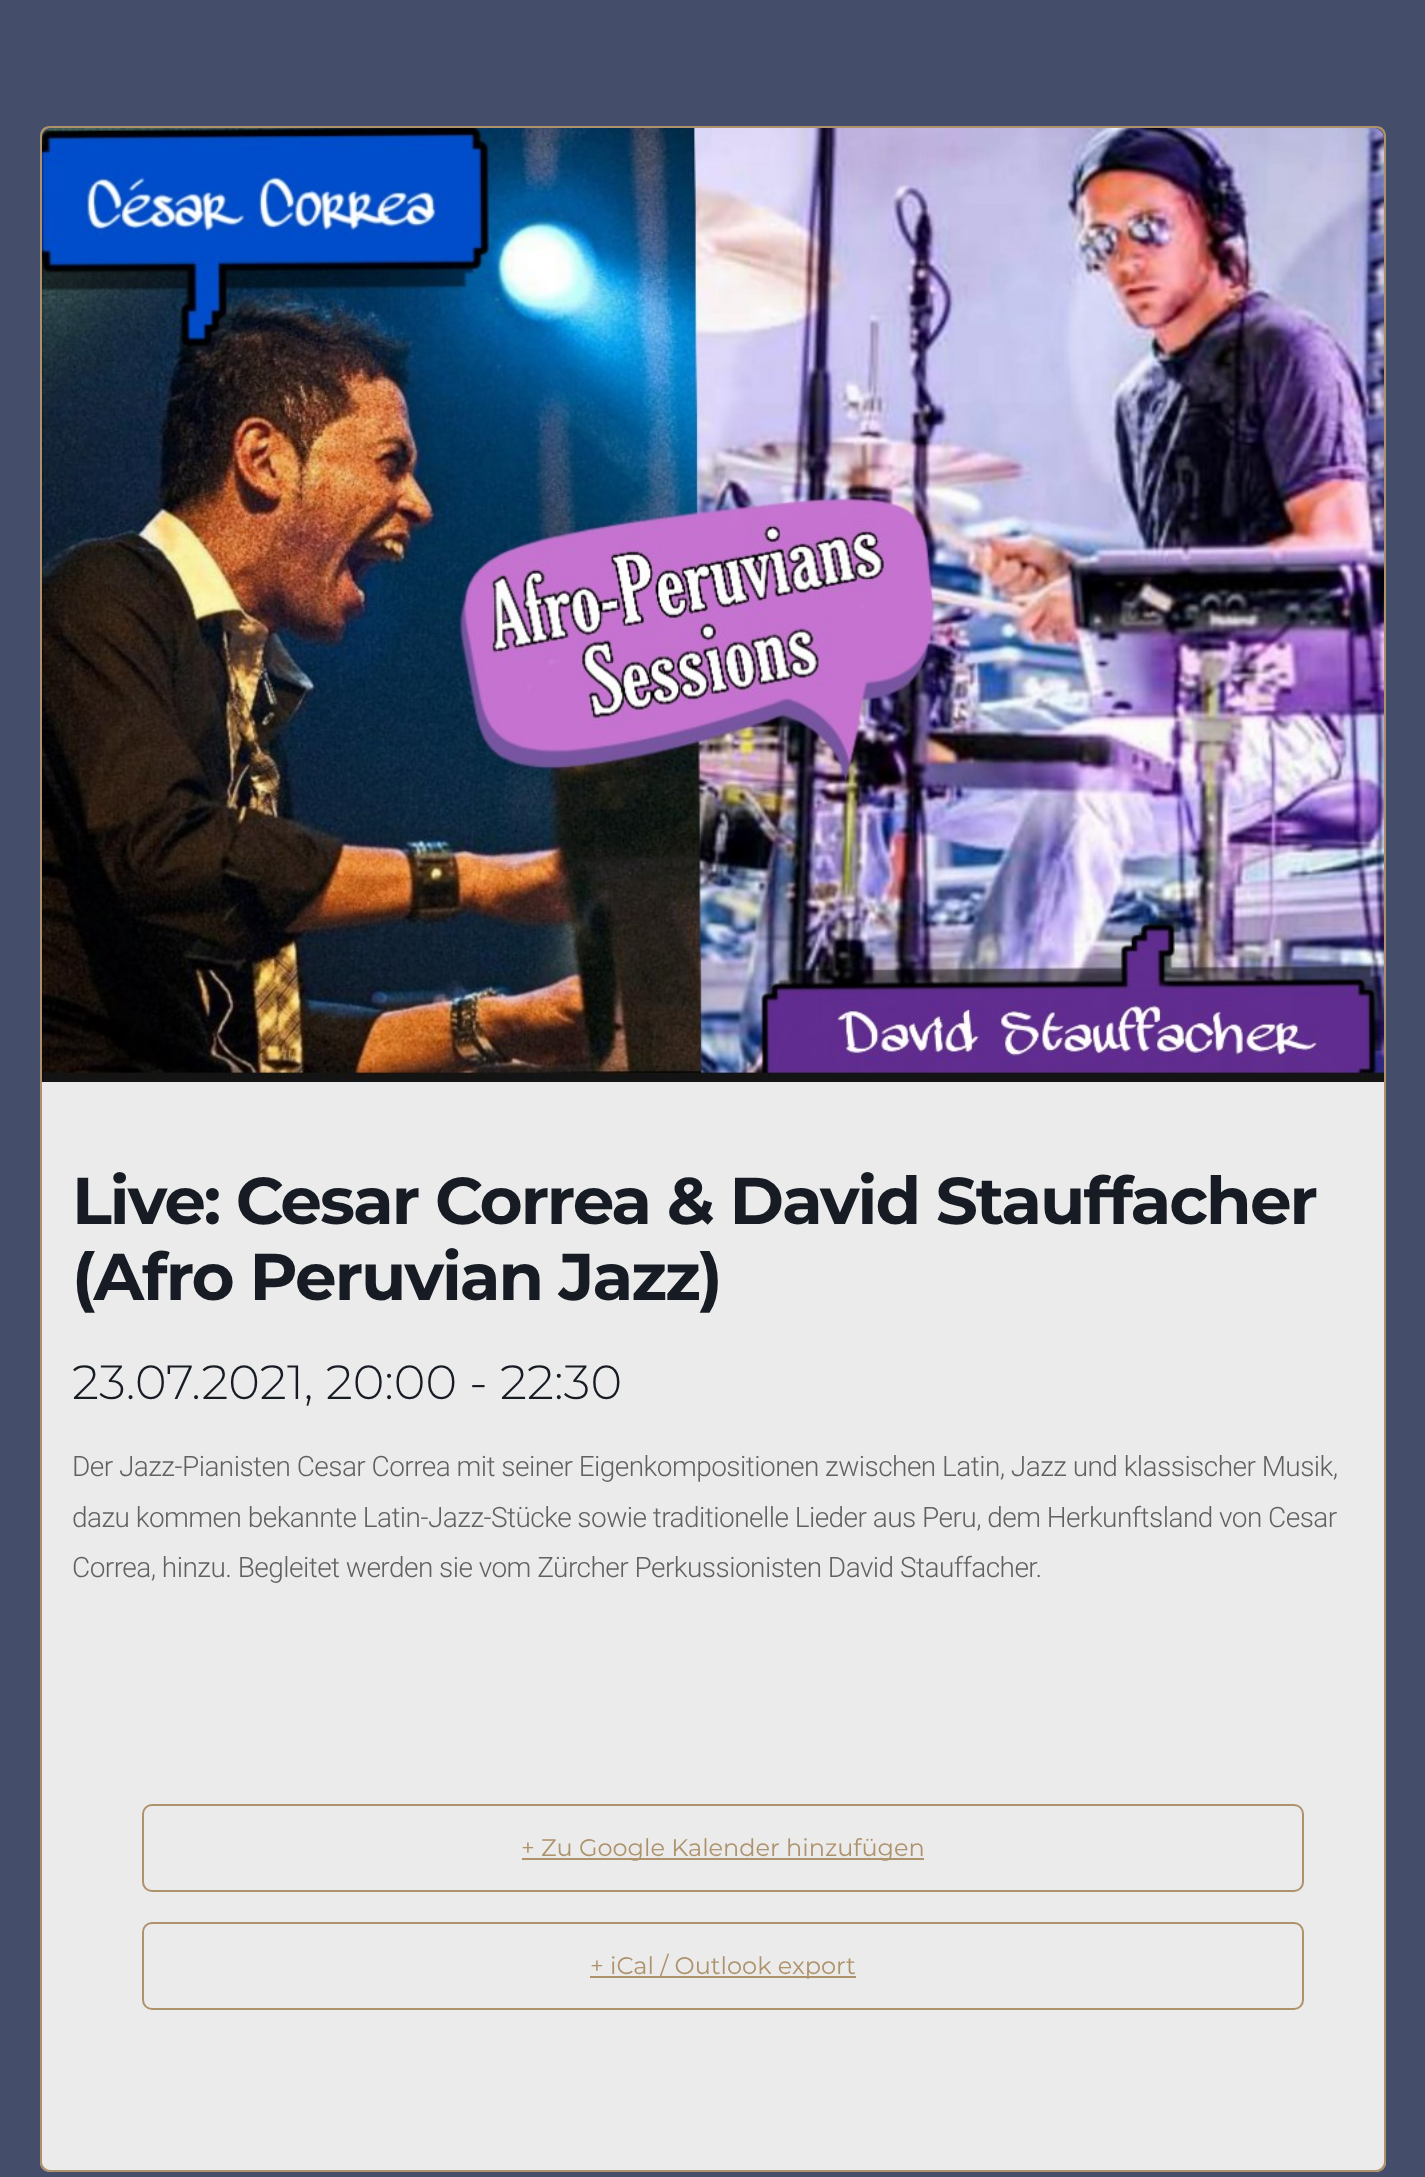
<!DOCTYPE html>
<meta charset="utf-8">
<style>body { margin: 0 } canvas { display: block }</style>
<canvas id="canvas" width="1425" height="2177"></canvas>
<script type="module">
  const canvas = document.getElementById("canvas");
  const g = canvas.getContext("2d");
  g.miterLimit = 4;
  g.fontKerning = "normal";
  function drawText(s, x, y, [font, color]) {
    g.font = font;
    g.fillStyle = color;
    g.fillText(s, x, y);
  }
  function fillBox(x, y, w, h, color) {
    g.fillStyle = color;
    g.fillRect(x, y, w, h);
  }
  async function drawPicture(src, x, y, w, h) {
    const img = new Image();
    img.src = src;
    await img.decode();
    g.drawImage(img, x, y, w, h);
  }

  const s1 = ["bold 66px Montserrat", "#171C24"];
  const s2 = ["300 48px Montserrat", "#171C24"];
  const s3 = ["300 28px Roboto", "#616161"];
  const s4 = ["24px Montserrat", "#AE926B"];

  fillBox(0, 0, 1425, 2177, "#444D6A");
  g.fillStyle = "#AE926B";
  g.beginPath();
  g.moveTo(50, 126);
  g.lineTo(1376, 126);
  g.bezierCurveTo(1382, 126, 1386, 130, 1386, 136);
  g.lineTo(1386, 1082);
  g.lineTo(40, 1082);
  g.lineTo(40, 136);
  g.bezierCurveTo(40, 130, 44, 126, 50, 126);
  g.closePath();
  g.moveTo(50, 128);
  g.lineTo(1376, 128);
  g.bezierCurveTo(1380, 128, 1384, 132, 1384, 136);
  g.lineTo(1384, 1082);
  g.lineTo(42, 1082);
  g.lineTo(42, 136);
  g.bezierCurveTo(42, 132, 46, 128, 50, 128);
  g.closePath();
  g.fill("evenodd");
  await drawPicture("pic1.png", 42, 128, 1342, 954);
  g.fillStyle = "#EBEBEB";
  g.beginPath();
  g.roundRect(40, 1082, 1346, 1090, [0, 0, 10, 10]);
  g.fill();
  g.fillStyle = "#AE926B";
  g.beginPath();
  g.moveTo(40, 1082);
  g.lineTo(1386, 1082);
  g.lineTo(1386, 2162);
  g.bezierCurveTo(1386, 2168, 1382, 2172, 1376, 2172);
  g.lineTo(50, 2172);
  g.bezierCurveTo(44, 2172, 40, 2168, 40, 2162);
  g.closePath();
  g.moveTo(42, 1082);
  g.lineTo(1384, 1082);
  g.lineTo(1384, 2162);
  g.bezierCurveTo(1384, 2166, 1380, 2170, 1376, 2170);
  g.lineTo(50, 2170);
  g.bezierCurveTo(46, 2170, 42, 2166, 42, 2162);
  g.closePath();
  g.fill("evenodd");
  g.letterSpacing = "-2px";
  drawText("Live: Cesar Correa & David Stauffacher", 72, 1224, s1);
  drawText("(Afro Peruvian Jazz)", 72, 1300, s1);
  g.letterSpacing = "0px";
  drawText("23.07.2021, 20:00 - 22:30", 72, 1399, s2);
  g.letterSpacing = "-0.54px";
  drawText("Der Jazz-Pianisten Cesar Correa mit seiner Eigenkompositionen zwischen Latin, Jazz und klassischer Musik,", 72, 1476, s3);
  drawText("dazu kommen bekannte Latin-Jazz-Stücke sowie traditionelle Lieder aus Peru, dem Herkunftsland von Cesar", 72, 1527, s3);
  drawText("Correa, hinzu. Begleitet werden sie vom Zürcher Perkussionisten David Stauffacher.", 72, 1577, s3);
  g.beginPath();
  g.roundRect(143, 1805, 1160, 86, 9);
  g.strokeStyle = "#AE926B";
  g.lineWidth = 2;
  g.stroke();
  fillBox(522, 1858, 402, 2, "#AE926B");
  g.letterSpacing = "0px";
  drawText("+ Zu Google Kalender hinzufügen", 521, 1856, s4);
  g.beginPath();
  g.roundRect(143, 1923, 1160, 86, 9);
  g.stroke();
  fillBox(590, 1976, 266, 2, "#AE926B");
  drawText("+ iCal / Outlook export", 590, 1974, s4);
</script>
